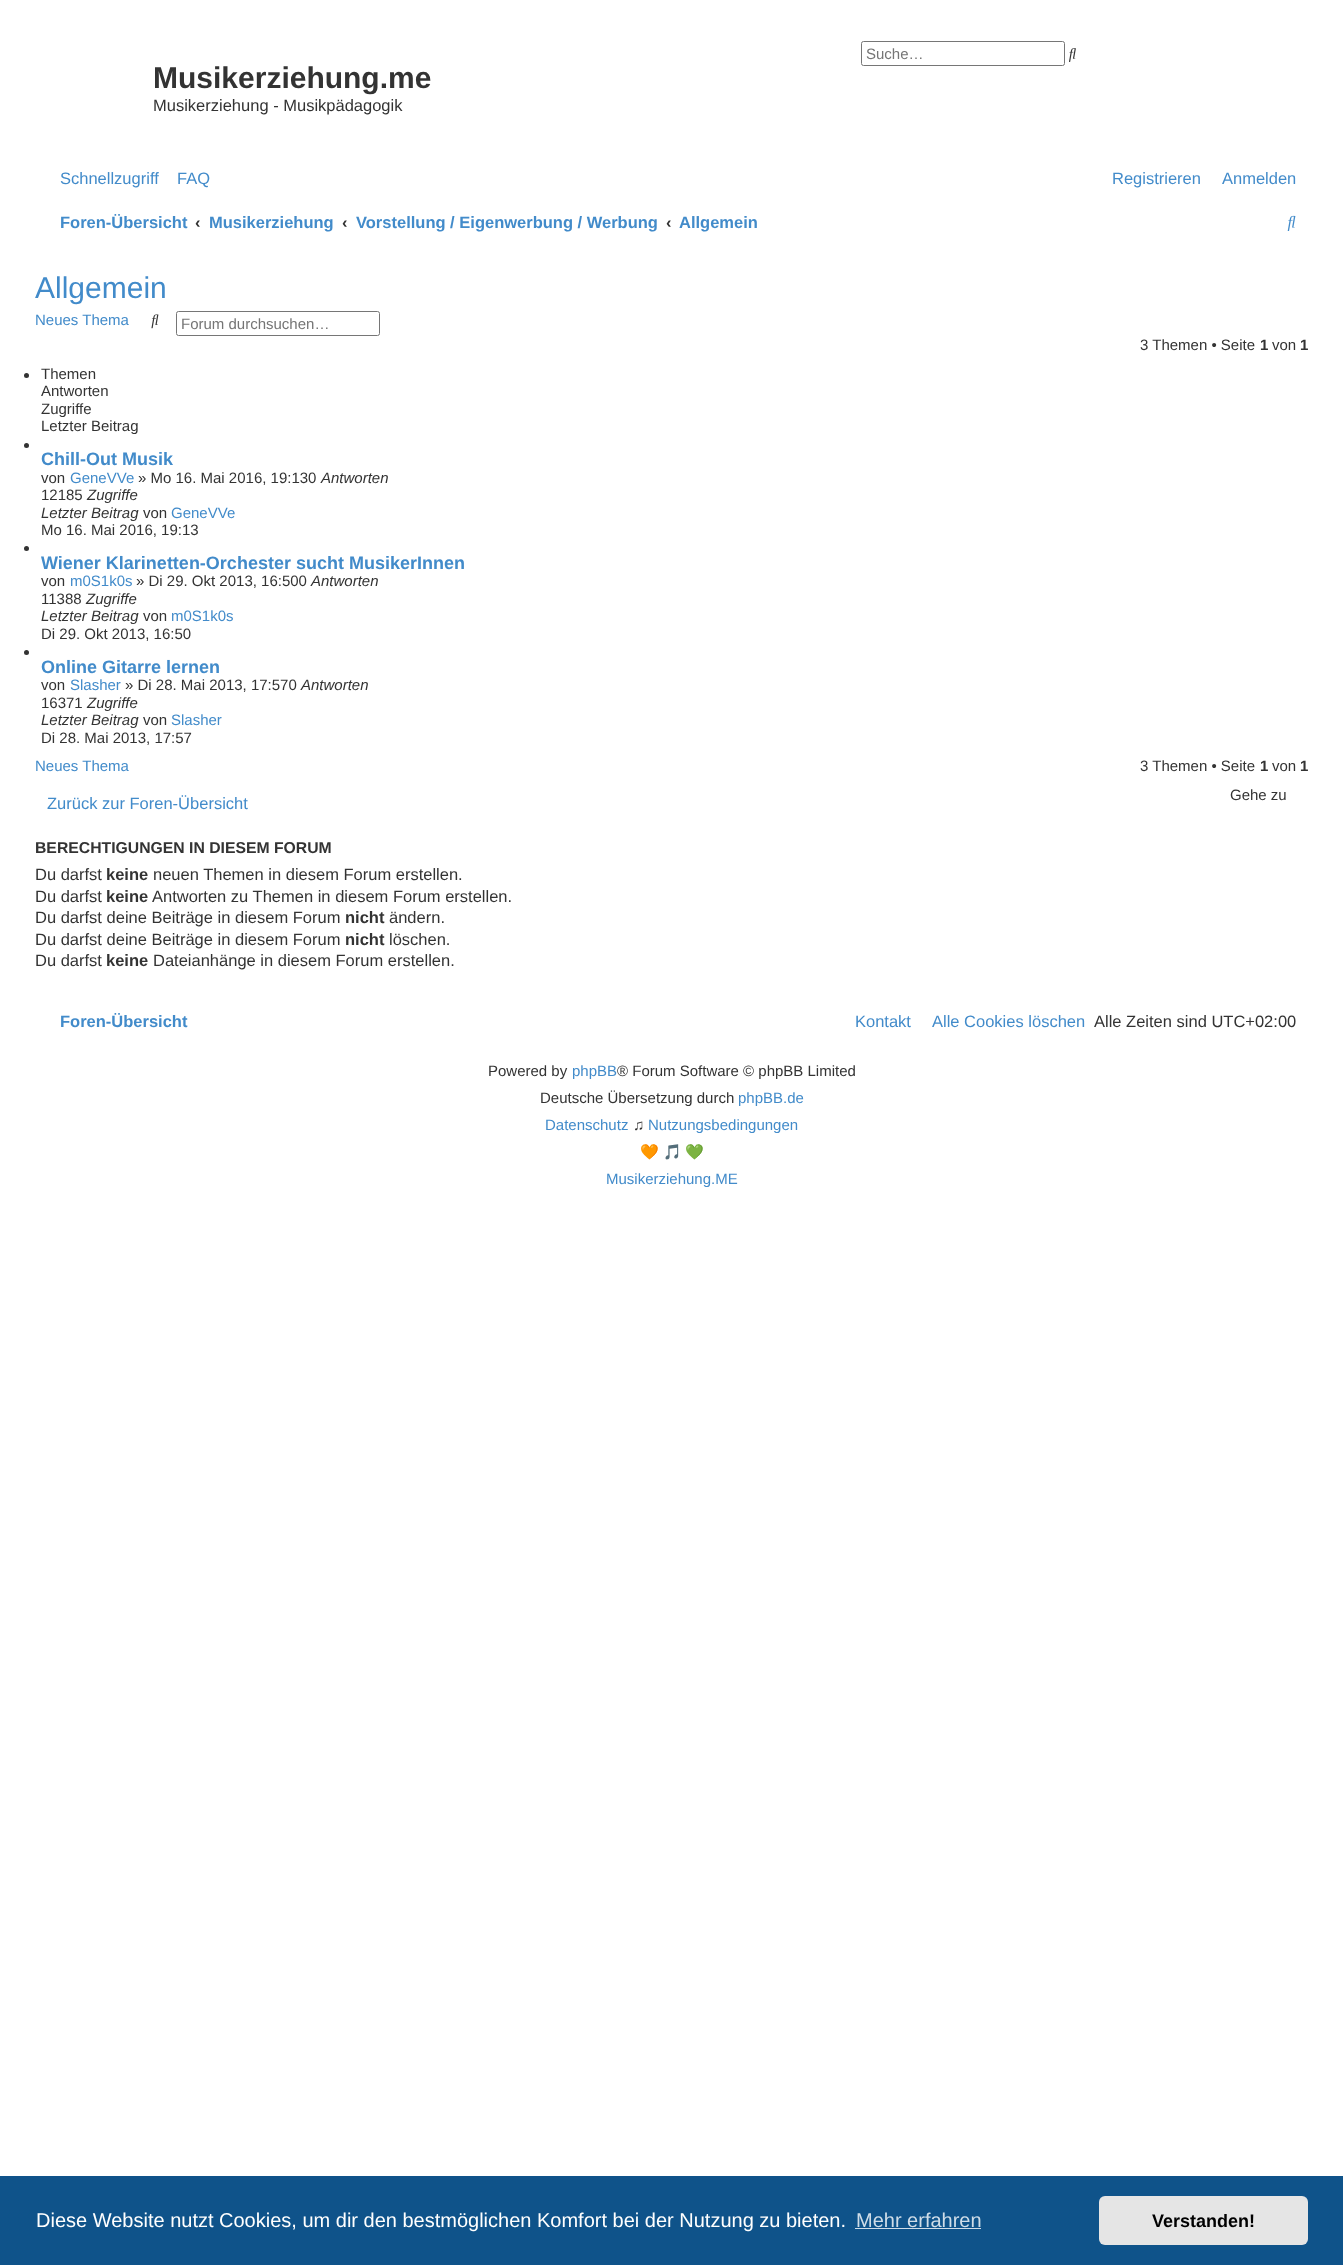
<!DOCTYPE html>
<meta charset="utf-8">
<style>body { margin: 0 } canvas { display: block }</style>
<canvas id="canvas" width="1343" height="2265"></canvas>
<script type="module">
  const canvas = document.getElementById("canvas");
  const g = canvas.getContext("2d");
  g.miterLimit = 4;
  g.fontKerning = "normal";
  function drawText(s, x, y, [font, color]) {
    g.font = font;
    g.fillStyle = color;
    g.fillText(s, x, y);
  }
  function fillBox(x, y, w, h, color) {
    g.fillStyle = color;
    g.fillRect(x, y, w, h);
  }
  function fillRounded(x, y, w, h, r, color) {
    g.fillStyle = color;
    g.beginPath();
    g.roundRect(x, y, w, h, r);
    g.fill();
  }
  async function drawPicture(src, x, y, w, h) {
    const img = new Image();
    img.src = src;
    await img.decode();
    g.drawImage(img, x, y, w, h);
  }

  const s1 = ["15px Liberation Sans", "#757575"];
  const s2 = ["bold 30px Liberation Sans", "#333333"];
  const s3 = ["16.5px Liberation Sans", "#333333"];
  const s4 = ["16.5px Liberation Sans", "#428BCA"];
  const s5 = ["bold 16.5px Liberation Sans", "#428BCA"];
  const s6 = ["bold 16.5px Liberation Sans", "#333333"];
  const s7 = ["30px Liberation Sans", "#428BCA"];
  const s8 = ["15px Liberation Sans", "#428BCA"];
  const s9 = ["15px Liberation Sans", "#333333"];
  const s10 = ["bold 15px Liberation Sans", "#333333"];
  const s11 = ["bold 18px Liberation Sans", "#428BCA"];
  const s12 = ["italic 15px Liberation Sans", "#333333"];
  const s13 = ["bold 15.75px Liberation Sans", "#333333"];
  const s14 = ["15px Noto Color Emoji", "#333333"];
  const s15 = ["20px Liberation Sans", "#FFFFFF"];
  const s16 = ["20px Liberation Sans", "#CFDDE8"];
  const s17 = ["bold 18px Liberation Sans", "#000000"];

  fillBox(0, 0, 1343, 2265, "#FFFFFF");
  g.beginPath();
  g.roundRect(861.5, 41.5, 203, 24, 2);
  g.strokeStyle = "#767676";
  g.stroke();
  drawText("Suche…", 866, 59, s1);
  await drawPicture("pic1.png", 1069, 48, 7, 14);
  drawText("Musikerziehung.me", 153, 88, s2);
  drawText("Musikerziehung - Musikpädagogik", 153, 111, s3);
  drawText("Schnellzugriff", 60, 184, s4);
  drawText("FAQ", 177, 184, s4);
  drawText("Registrieren", 1112, 184, s4);
  drawText("Anmelden", 1222, 184, s4);
  drawText("Foren-Übersicht", 60, 228, s5);
  drawText("‹", 195, 228, s6);
  drawText("Musikerziehung", 209, 228, s5);
  drawText("‹", 342, 228, s6);
  drawText("Vorstellung / Eigenwerbung / Werbung", 356, 228, s5);
  drawText("‹", 666, 228, s6);
  drawText("Allgemein", 679, 228, s5);
  await drawPicture("pic2.png", 1287, 215, 9, 16);
  drawText("Allgemein", 35, 298, s7);
  drawText("Neues Thema", 35, 325, s8);
  await drawPicture("pic3.png", 151, 314, 8, 15);
  g.beginPath();
  g.roundRect(176.5, 311.5, 203, 24, 2);
  g.stroke();
  drawText("Forum durchsuchen…", 181, 329, s1);
  drawText("3 Themen • Seite", 1140, 350, s9);
  drawText("1", 1260, 350, s10);
  drawText("von", 1272, 350, s9);
  drawText("1", 1300, 350, s10);
  g.beginPath();
  g.arc(26.5, 375.5, 2.5, 0, Math.PI * 2);
  g.fill();
  drawText("Themen", 41, 379, s9);
  drawText("Antworten", 41, 396, s9);
  drawText("Zugriffe", 41, 414, s9);
  drawText("Letzter Beitrag", 41, 431, s9);
  g.beginPath();
  g.arc(26.5, 445.5, 2.5, 0, Math.PI * 2);
  g.fill();
  drawText("Chill-Out Musik", 41, 465, s11);
  drawText("von", 41, 483, s9);
  drawText("GeneVVe", 70, 483, s8);
  drawText("» Mo 16. Mai 2016, 19:130", 138, 483, s9);
  drawText("Antworten", 321, 483, s12);
  drawText("12185", 41, 500, s9);
  drawText("Zugriffe", 87, 500, s12);
  drawText("Letzter Beitrag", 41, 518, s12);
  drawText("von", 143, 518, s9);
  drawText("GeneVVe", 171, 518, s8);
  drawText("Mo 16. Mai 2016, 19:13", 41, 535, s9);
  g.beginPath();
  g.arc(26.5, 548.5, 2.5, 0, Math.PI * 2);
  g.fill();
  drawText("Wiener Klarinetten-Orchester sucht MusikerInnen", 41, 569, s11);
  drawText("von", 41, 586, s9);
  drawText("m0S1k0s", 70, 586, s8);
  drawText("» Di 29. Okt 2013, 16:500", 136, 586, s9);
  drawText("Antworten", 311, 586, s12);
  drawText("11388", 41, 604, s9);
  drawText("Zugriffe", 86, 604, s12);
  drawText("Letzter Beitrag", 41, 621, s12);
  drawText("von", 143, 621, s9);
  drawText("m0S1k0s", 171, 621, s8);
  drawText("Di 29. Okt 2013, 16:50", 41, 639, s9);
  g.beginPath();
  g.arc(26.5, 652.5, 2.5, 0, Math.PI * 2);
  g.fill();
  drawText("Online Gitarre lernen", 41, 673, s11);
  drawText("von", 41, 690, s9);
  drawText("Slasher", 70, 690, s8);
  drawText("» Di 28. Mai 2013, 17:570", 125, 690, s9);
  drawText("Antworten", 301, 690, s12);
  drawText("16371", 41, 708, s9);
  drawText("Zugriffe", 87, 708, s12);
  drawText("Letzter Beitrag", 41, 725, s12);
  drawText("von", 143, 725, s9);
  drawText("Slasher", 171, 725, s8);
  drawText("Di 28. Mai 2013, 17:57", 41, 743, s9);
  drawText("Neues Thema", 35, 771, s8);
  drawText("3 Themen • Seite", 1140, 771, s9);
  drawText("1", 1260, 771, s10);
  drawText("von", 1272, 771, s9);
  drawText("1", 1300, 771, s10);
  drawText("Zurück zur Foren-Übersicht", 47, 809, s4);
  drawText("Gehe zu", 1230, 800, s9);
  drawText("BERECHTIGUNGEN IN DIESEM FORUM", 35, 853, s13);
  drawText("Du darfst", 35, 880, s3);
  drawText("keine", 106, 880, s6);
  drawText("neuen Themen in diesem Forum erstellen.", 153, 880, s3);
  drawText("Du darfst", 35, 902, s3);
  drawText("keine", 106, 902, s6);
  drawText("Antworten zu Themen in diesem Forum erstellen.", 152, 902, s3);
  drawText("Du darfst deine Beiträge in diesem Forum", 35, 923, s3);
  drawText("nicht", 345, 923, s6);
  drawText("ändern.", 389, 923, s3);
  drawText("Du darfst deine Beiträge in diesem Forum", 35, 945, s3);
  drawText("nicht", 345, 945, s6);
  drawText("löschen.", 389, 945, s3);
  drawText("Du darfst", 35, 966, s3);
  drawText("keine", 106, 966, s6);
  drawText("Dateianhänge in diesem Forum erstellen.", 153, 966, s3);
  drawText("Foren-Übersicht", 60, 1027, s5);
  drawText("Kontakt", 855, 1027, s4);
  drawText("Alle Cookies löschen", 932, 1027, s4);
  drawText("Alle Zeiten sind UTC+02:00", 1094, 1027, s3);
  drawText("Powered by", 488, 1076, s9);
  drawText("phpBB", 572, 1076, s8);
  drawText("® Forum Software © phpBB Limited", 617, 1076, s9);
  drawText("Deutsche Übersetzung durch", 540, 1103, s9);
  drawText("phpBB.de", 738, 1103, s8);
  drawText("Datenschutz", 545, 1130, s8);
  drawText("♫", 633, 1130, s9);
  drawText("Nutzungsbedingungen", 648, 1130, s8);
  drawText("🧡", 640, 1157, s14);
  drawText("🎵", 663, 1157, s14);
  drawText("💚", 685, 1157, s14);
  drawText("Musikerziehung.ME", 606, 1184, s8);
  fillBox(0, 2176, 1343, 89, "#0F538A");
  drawText("Diese Website nutzt Cookies, um dir den bestmöglichen Komfort bei der Nutzung zu bieten.", 36, 2227, s15);
  drawText("Mehr erfahren", 856, 2227, s16);
  fillBox(855, 2228, 126, 1, "#CFDDE8");
  fillRounded(1099, 2196, 209, 49, 6, "#E5E5E5");
  drawText("Verstanden!", 1152, 2227, s17);
</script>
